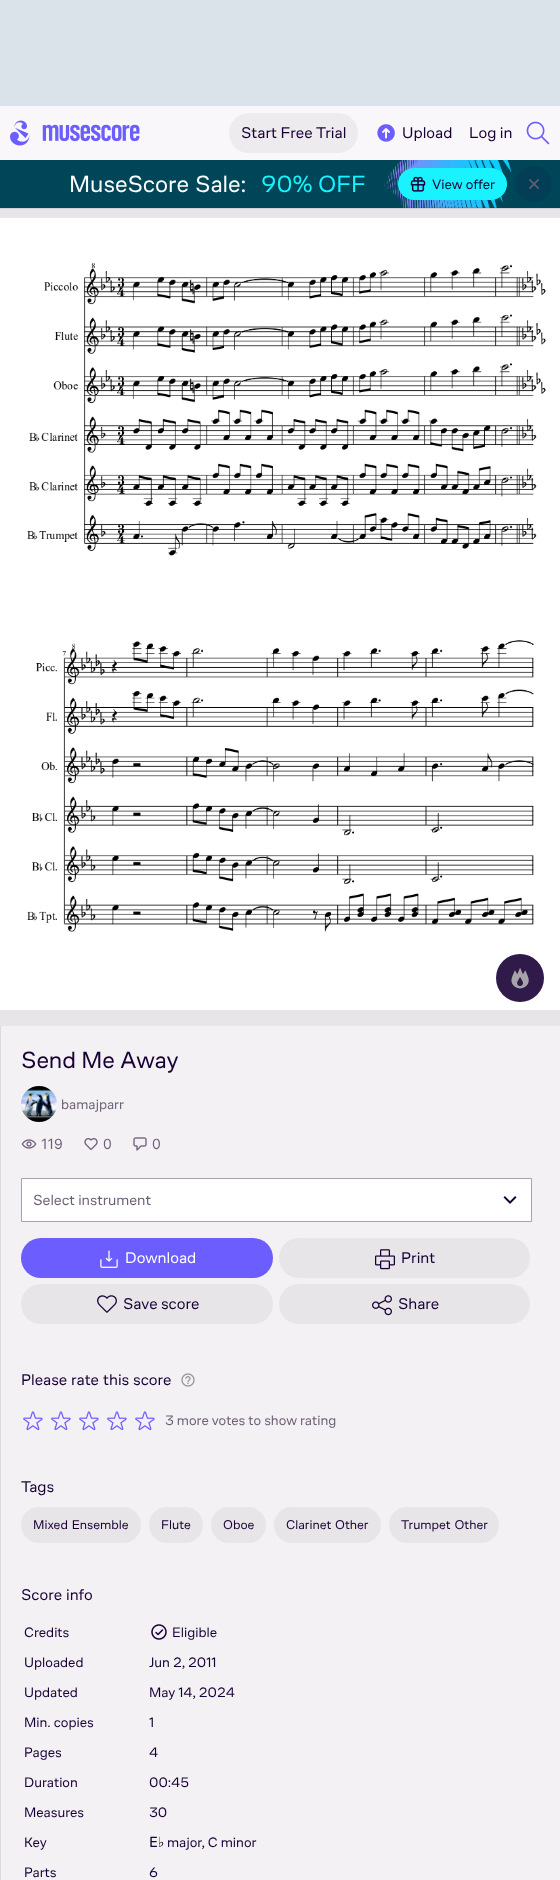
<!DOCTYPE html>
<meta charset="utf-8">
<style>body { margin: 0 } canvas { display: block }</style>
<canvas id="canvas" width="560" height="1880"></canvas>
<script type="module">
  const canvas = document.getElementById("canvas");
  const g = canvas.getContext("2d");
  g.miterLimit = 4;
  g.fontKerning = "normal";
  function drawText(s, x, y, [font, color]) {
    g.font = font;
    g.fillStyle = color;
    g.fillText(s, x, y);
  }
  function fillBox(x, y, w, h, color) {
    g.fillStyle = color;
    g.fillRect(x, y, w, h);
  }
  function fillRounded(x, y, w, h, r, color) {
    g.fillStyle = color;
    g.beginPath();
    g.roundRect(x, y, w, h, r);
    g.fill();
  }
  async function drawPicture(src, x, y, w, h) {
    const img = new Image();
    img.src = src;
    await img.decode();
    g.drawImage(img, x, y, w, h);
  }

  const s1 = ["16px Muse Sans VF", "#180036"];
  const s2 = ["24px Muse Sans VF", "#FFFFFF"];
  const s3 = ["24px Muse Sans VF", "#19F3FF"];
  const s4 = ["14px Muse Sans VF", "#180036"];
  const s5 = ["24px Muse Sans VF", "#180036"];
  const s6 = ["14px Muse Sans VF", "#6E5F79"];
  const s7 = ["14px Inter", "#6E5F79"];
  const s8 = ["15px Muse Sans VF", "#6E5F79"];
  const s9 = ["16px Muse Sans VF", "#FFFFFF"];
  const s10 = ["13px Muse Sans VF", "#180036"];
  const s11 = ["14px DejaVu Sans", "#180036"];

  fillBox(0, 0, 560, 1880, "#E7E5E8");
  fillBox(0, 208, 560, 1, "#D2CED6");
  fillBox(0, 0, 560, 106, "#DAE3E9");
  fillBox(0, 106, 560, 54, "#F9F7FA");
  await drawPicture("pic1.png", 10, 120, 130, 26);
  fillRounded(229, 113, 129, 40, 20, "#EDEBEE");
  drawText("Start Free Trial", 241, 138, s1);
  await drawPicture("pic2.png", 377, 124, 18, 18);
  drawText("Upload", 402, 138, s1);
  drawText("Log in", 469, 138, s1);
  await drawPicture("pic3.png", 526, 121, 24, 24);
  fillBox(0, 160, 560, 48, "#004659");
  drawText("MuseScore", 69, 192, s2);
  drawText("Sale:", 195, 192, s2);
  drawText("90%", 261, 192, s3);
  drawText("OFF", 318, 192, s3);
  await drawPicture("pic4.png", 384, 160, 128, 48);
  fillRounded(398, 168, 109, 32, 16, "#19F3FF");
  await drawPicture("pic5.png", 410, 176, 16, 16);
  drawText("View offer", 432, 189, s4);
  g.fillStyle = "#023F56";
  g.beginPath();
  g.arc(534, 184, 18, 0, Math.PI * 2);
  g.fill();
  await drawPicture("pic6.png", 529, 179, 10, 10);
  fillBox(0, 218, 560, 792, "#FFFFFF");
  await drawPicture("pic7.png", 27, 262, 519, 670);
  g.fillStyle = "#2F1A4A";
  g.beginPath();
  g.arc(520, 978, 24, 0, Math.PI * 2);
  g.fill();
  await drawPicture("pic8.png", 511, 967, 18, 22);
  fillBox(1, 1026, 559, 854, "#F3F1F4");
  fillBox(0, 1026, 1, 854, "#DDD9E1");
  drawText("Send Me Away", 21, 1068, s5);
  await drawPicture("pic9.png", 21, 1086, 36, 36);
  drawText("bamajparr", 61, 1109, s6);
  await drawPicture("pic10.png", 21, 1139, 16, 10);
  drawText("119", 41, 1149, s7);
  await drawPicture("pic11.png", 84, 1138, 14, 12);
  drawText("0", 103, 1149, s7);
  await drawPicture("pic12.png", 133, 1137, 14, 14);
  drawText("0", 152, 1149, s7);
  g.fillStyle = "#FFFFFF";
  g.beginPath();
  g.rect(21.5, 1178.5, 510, 43);
  g.fill();
  g.strokeStyle = "#A7A4A9";
  g.stroke();
  drawText("Select instrument", 33, 1205, s8);
  await drawPicture("pic13.png", 503, 1196, 14, 8);
  fillRounded(21, 1238, 252, 40, 20, "#6B5DFE");
  await drawPicture("pic14.png", 100, 1250, 18, 18);
  drawText("Download", 125, 1263, s9);
  fillRounded(279, 1238, 251, 40, 20, "#E7E5E8");
  await drawPicture("pic15.png", 375, 1249, 20, 21);
  drawText("Print", 401, 1263, s1);
  fillRounded(21, 1284, 252, 40, 20, "#E7E5E8");
  await drawPicture("pic16.png", 97, 1295, 20, 18);
  drawText("Save score", 123, 1309, s1);
  fillRounded(279, 1284, 251, 40, 20, "#E7E5E8");
  await drawPicture("pic17.png", 372, 1295, 20, 21);
  drawText("Share", 398, 1309, s1);
  drawText("Please", 21, 1385, s1);
  drawText("rate", 71, 1385, s1);
  drawText("this", 103, 1385, s1);
  drawText("score", 133, 1385, s1);
  await drawPicture("pic18.png", 181, 1373, 14, 14);
  await drawPicture("pic19.png", 23, 1411, 20, 20);
  await drawPicture("pic19.png", 51, 1411, 20, 20);
  await drawPicture("pic19.png", 79, 1411, 20, 20);
  await drawPicture("pic19.png", 107, 1411, 20, 20);
  await drawPicture("pic19.png", 135, 1411, 20, 20);
  drawText("3 more votes to show rating", 165, 1425, s6);
  drawText("Tags", 21, 1492, s1);
  fillRounded(21, 1507, 120, 36, 18, "#E7E5E8");
  g.wordSpacing = "1px";
  drawText("Mixed Ensemble", 33, 1529, s10);
  fillRounded(149, 1507, 54, 36, 18, "#E7E5E8");
  g.wordSpacing = "0px";
  drawText("Flute", 161, 1529, s10);
  fillRounded(211, 1507, 55, 36, 18, "#E7E5E8");
  drawText("Oboe", 223, 1529, s10);
  fillRounded(274, 1507, 107, 36, 18, "#E7E5E8");
  g.wordSpacing = "1px";
  drawText("Clarinet Other", 286, 1529, s10);
  fillRounded(389, 1507, 110, 36, 18, "#E7E5E8");
  drawText("Trumpet Other", 401, 1529, s10);
  g.wordSpacing = "0px";
  drawText("Score", 21, 1600, s1);
  drawText("info", 66, 1600, s1);
  drawText("Credits", 24, 1637, s4);
  await drawPicture("pic20.png", 151, 1624, 16, 16);
  drawText("Eligible", 172, 1637, s4);
  drawText("Uploaded", 24, 1667, s4);
  drawText("Jun 2, 2011", 149, 1667, s4);
  drawText("Updated", 24, 1697, s4);
  drawText("May 14, 2024", 149, 1697, s4);
  drawText("Min. copies", 24, 1727, s4);
  drawText("1", 149, 1727, s4);
  drawText("Pages", 24, 1757, s4);
  drawText("4", 149, 1757, s4);
  drawText("Duration", 24, 1787, s4);
  drawText("00:45", 149, 1787, s4);
  drawText("Measures", 24, 1817, s4);
  drawText("30", 149, 1817, s4);
  drawText("Key", 24, 1847, s4);
  drawText("E♭", 149, 1847, s11);
  drawText("major, C minor", 167, 1847, s4);
  drawText("Parts", 24, 1877, s4);
  drawText("6", 149, 1877, s4);
</script>
